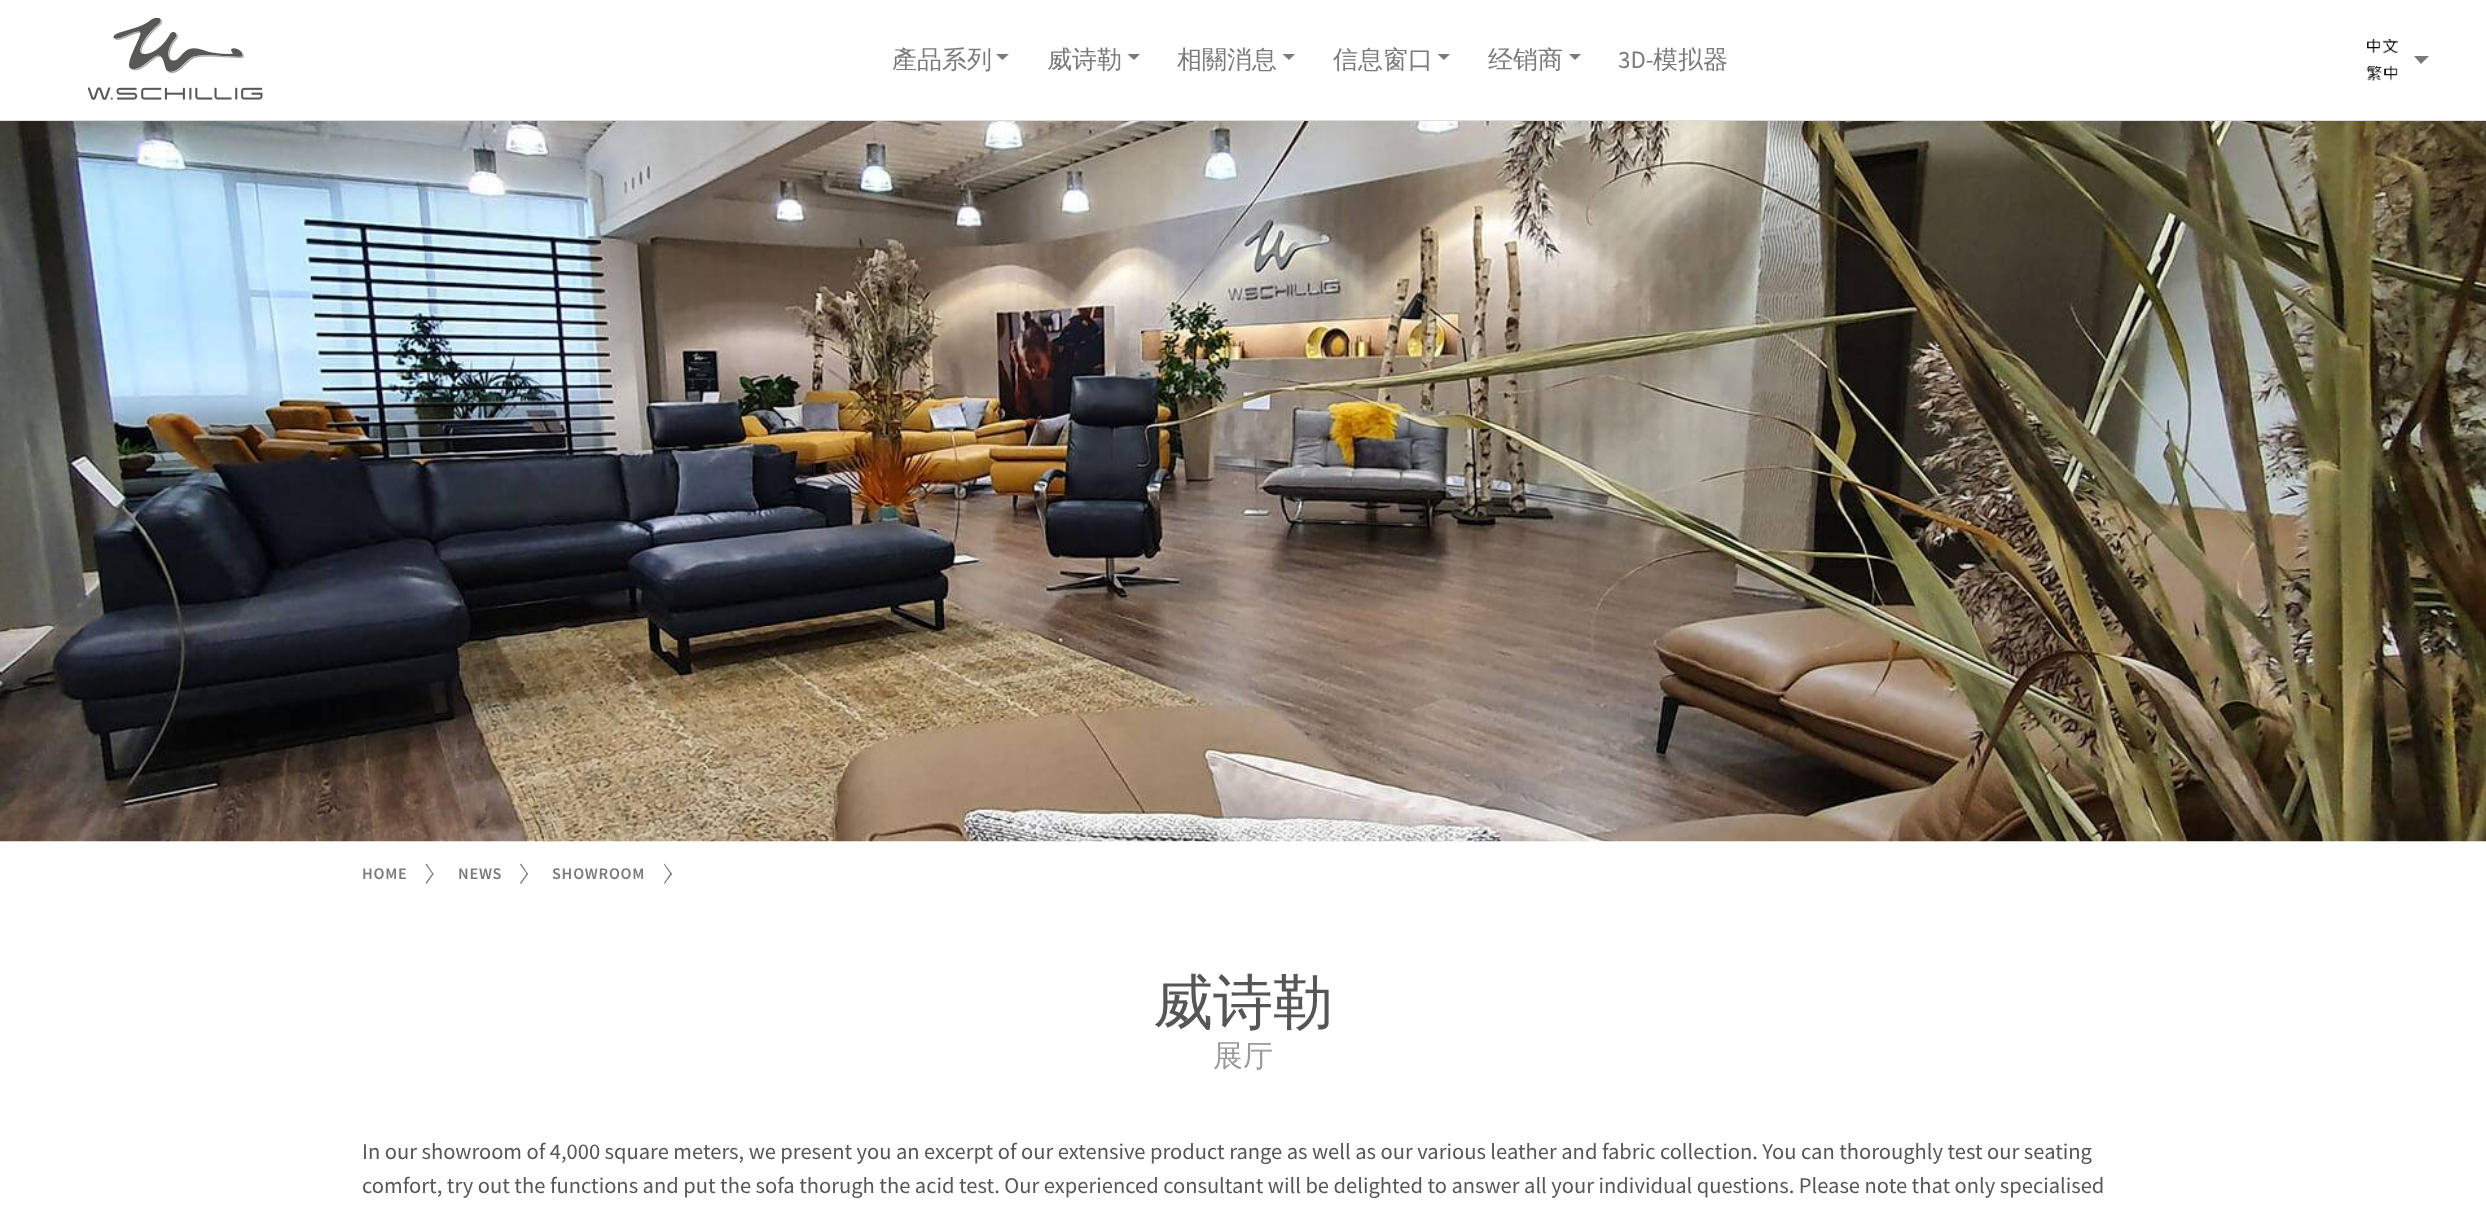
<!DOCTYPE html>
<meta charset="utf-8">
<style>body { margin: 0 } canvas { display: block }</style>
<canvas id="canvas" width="2486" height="1208"></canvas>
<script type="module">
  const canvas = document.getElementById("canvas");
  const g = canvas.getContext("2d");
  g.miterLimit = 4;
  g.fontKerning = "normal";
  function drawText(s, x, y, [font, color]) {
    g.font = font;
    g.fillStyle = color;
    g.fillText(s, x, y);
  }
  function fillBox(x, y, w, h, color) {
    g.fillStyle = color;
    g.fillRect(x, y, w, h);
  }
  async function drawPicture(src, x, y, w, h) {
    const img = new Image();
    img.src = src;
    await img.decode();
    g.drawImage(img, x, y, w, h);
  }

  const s1 = ["500 25px WenQuanYi Zen Hei", "#7A7A7A"];
  const s2 = ["25px Source Sans Pro", "#7A7A7A"];
  const s3 = ["600 16.25px Source Sans Pro", "#7A7A7A"];
  const s4 = ["500 60px WenQuanYi Zen Hei", "#565656"];
  const s5 = ["500 30px WenQuanYi Zen Hei", "#9A9A9A"];
  const s6 = ["22.5px Source Sans Pro", "#565656"];

  fillBox(0, 0, 2486, 1208, "#FFFFFF");
  fillBox(0, 120, 2486, 1, "#DDDDDD");
  await drawPicture("pic1.png", 88, 18, 175, 82);
  drawText("產品系列", 892, 68, s1);
  g.beginPath();
  g.moveTo(996, 54);
  g.lineTo(1009, 54);
  g.lineTo(1002.5, 60);
  g.closePath();
  g.fill();
  drawText("威诗勒", 1047, 68, s1);
  g.beginPath();
  g.moveTo(1127.5, 54);
  g.lineTo(1140, 54);
  g.lineTo(1134, 60);
  g.closePath();
  g.fill();
  drawText("相關消息", 1177, 68, s1);
  g.beginPath();
  g.moveTo(1282.5, 54);
  g.lineTo(1295, 54);
  g.lineTo(1289, 60);
  g.closePath();
  g.fill();
  drawText("信息窗口", 1333, 68, s1);
  g.beginPath();
  g.moveTo(1437.5, 54);
  g.lineTo(1450, 54);
  g.lineTo(1444, 60);
  g.closePath();
  g.fill();
  drawText("经销商", 1488, 68, s1);
  g.beginPath();
  g.moveTo(1569, 54);
  g.lineTo(1581, 54);
  g.lineTo(1575, 60);
  g.closePath();
  g.fill();
  drawText("3D-", 1618, 68, s2);
  drawText("模拟器", 1653, 68, s1);
  await drawPicture("pic2.png", 2366, 39, 32, 42);
  g.beginPath();
  g.moveTo(2414, 56);
  g.lineTo(2429, 56);
  g.lineTo(2421, 64);
  g.closePath();
  g.fill();
  await drawPicture("pic3.png", 0, 121, 2486, 721);
  g.letterSpacing = "0.75px";
  drawText("HOME", 362, 879, s3);
  g.beginPath();
  g.moveTo(426.5, 863.5);
  g.lineTo(433.5, 874);
  g.lineTo(433, 875);
  g.lineTo(425.5, 864.5);
  g.closePath();
  g.fill();
  g.beginPath();
  g.moveTo(433, 872.5);
  g.lineTo(433.5, 874);
  g.lineTo(426.5, 884);
  g.lineTo(425.5, 883);
  g.closePath();
  g.fill();
  drawText("NEWS", 458, 879, s3);
  g.beginPath();
  g.moveTo(521, 863.5);
  g.lineTo(528, 874);
  g.lineTo(527.5, 875);
  g.lineTo(520, 864.5);
  g.closePath();
  g.fill();
  g.beginPath();
  g.moveTo(527.5, 872.5);
  g.lineTo(528, 874);
  g.lineTo(521, 884);
  g.lineTo(520, 883);
  g.closePath();
  g.fill();
  drawText("SHOWROOM", 552, 879, s3);
  g.beginPath();
  g.moveTo(664.5, 863.5);
  g.lineTo(672, 874);
  g.lineTo(671, 875);
  g.lineTo(664, 864.5);
  g.closePath();
  g.fill();
  g.beginPath();
  g.moveTo(671, 872.5);
  g.lineTo(672, 874);
  g.lineTo(664.5, 884);
  g.lineTo(664, 883);
  g.closePath();
  g.fill();
  g.letterSpacing = "0px";
  drawText("威诗勒", 1153, 1023, s4);
  drawText("展厅", 1213, 1066, s5);
  drawText("In our showroom of 4,000 square meters, we present you an excerpt of our extensive product range as well as our various leather and fabric collection. You can thoroughly test our seating", 362, 1159, s6);
  drawText("comfort, try out the functions and put the sofa thorugh the acid test. Our experienced consultant will be delighted to answer all your individual questions. Please note that only specialised", 362, 1193, s6);
</script>
